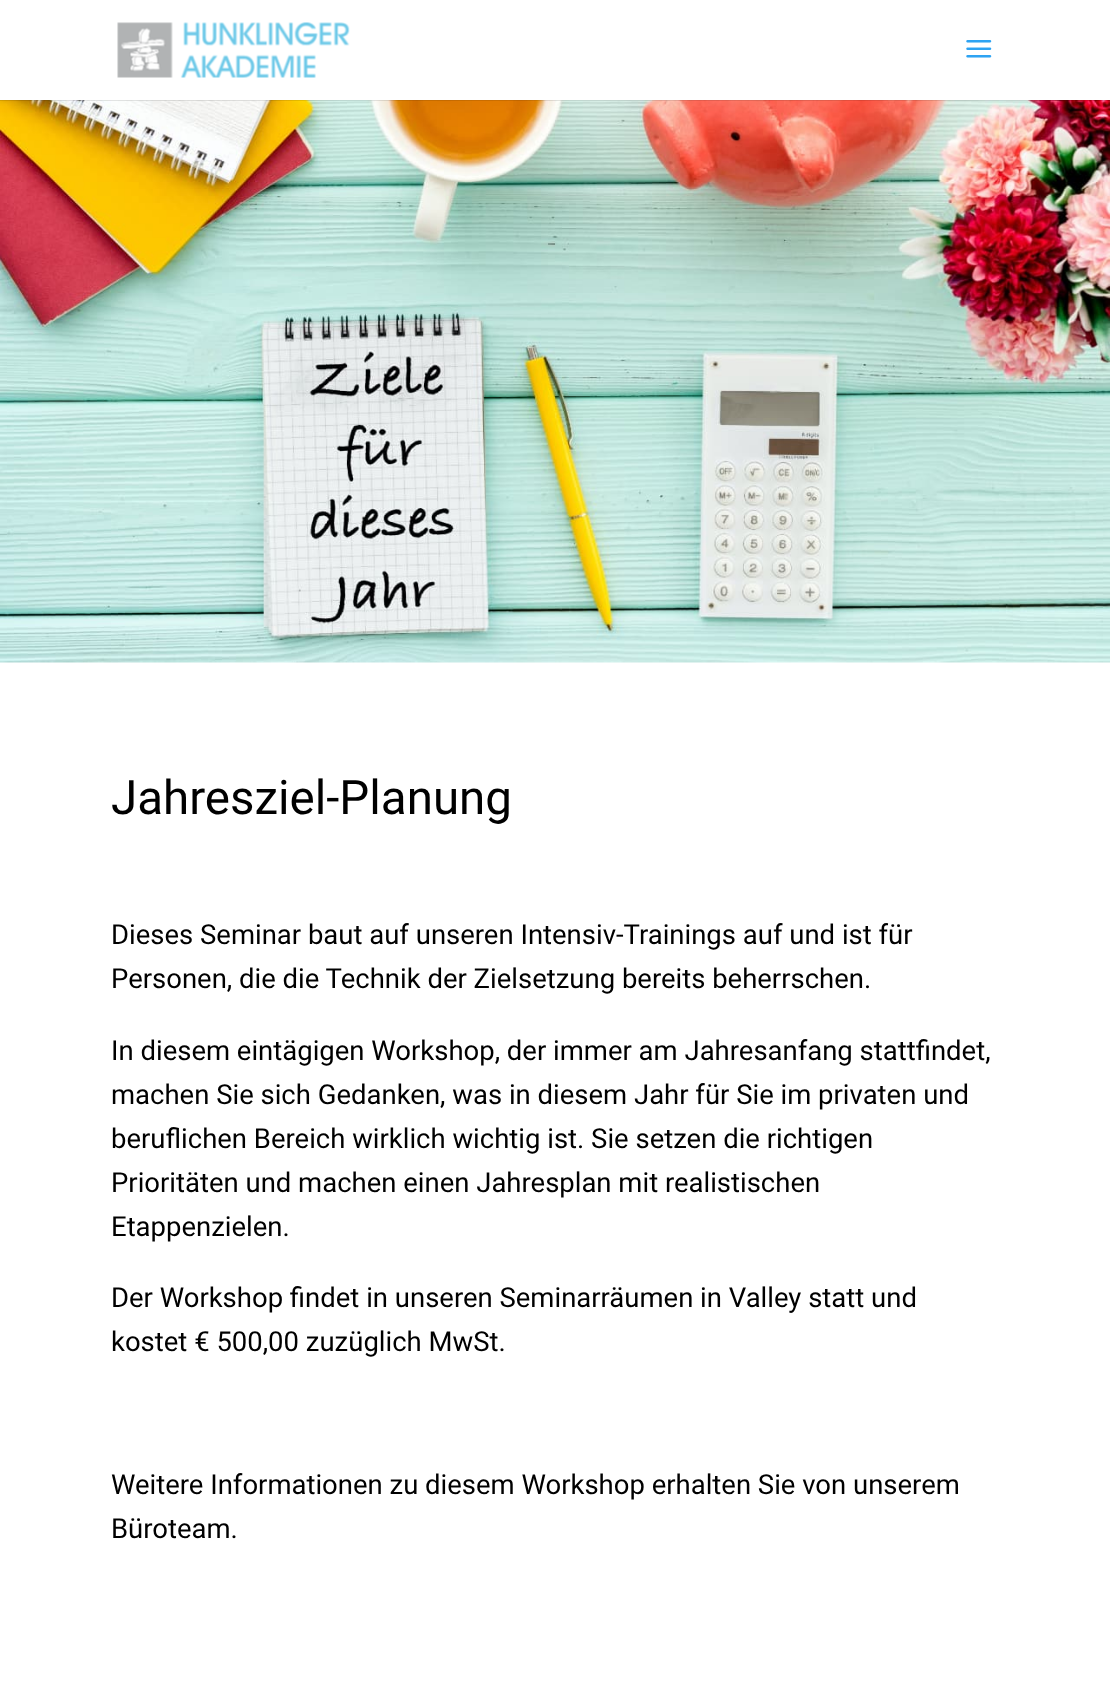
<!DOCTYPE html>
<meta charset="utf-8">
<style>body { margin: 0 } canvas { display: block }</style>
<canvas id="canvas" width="1110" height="1696"></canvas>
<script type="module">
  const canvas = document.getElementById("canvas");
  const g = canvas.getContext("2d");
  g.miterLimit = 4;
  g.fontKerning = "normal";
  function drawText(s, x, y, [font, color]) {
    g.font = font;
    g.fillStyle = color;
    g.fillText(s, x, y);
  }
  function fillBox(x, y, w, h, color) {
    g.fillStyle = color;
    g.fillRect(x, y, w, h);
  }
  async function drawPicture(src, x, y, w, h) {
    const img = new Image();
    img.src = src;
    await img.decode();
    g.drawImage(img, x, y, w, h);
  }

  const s1 = ["47.5px Roboto", "#000000"];
  const s2 = ["27.5px Roboto", "#000000"];

  fillBox(0, 0, 1110, 1696, "#FFFFFF");
  await drawPicture("pic3.png", 0, 100, 1110, 563);
  fillBox(0, 100, 1110, 1, "rgba(0, 0, 0, 0.1)");
  await drawPicture("pic1.png", 117, 22, 233, 56);
  await drawPicture("pic2.png", 966, 40, 26, 18);
  drawText("Jahresziel-Planung", 111, 814, s1);
  drawText("Dieses Seminar baut auf unseren Intensiv-Trainings auf und ist für", 111, 944, s2);
  drawText("Personen, die die Technik der Zielsetzung bereits beherrschen.", 111, 988, s2);
  drawText("In diesem eintägigen Workshop, der immer am Jahresanfang stattfindet,", 111, 1060, s2);
  drawText("machen Sie sich Gedanken, was in diesem Jahr für Sie im privaten und", 111, 1104, s2);
  drawText("beruflichen Bereich wirklich wichtig ist. Sie setzen die richtigen", 111, 1148, s2);
  drawText("Prioritäten und machen einen Jahresplan mit realistischen", 111, 1192, s2);
  drawText("Etappenzielen.", 111, 1236, s2);
  drawText("Der Workshop findet in unseren Seminarräumen in Valley statt und", 111, 1307, s2);
  drawText("kostet € 500,00 zuzüglich MwSt.", 111, 1351, s2);
  drawText("Weitere Informationen zu diesem Workshop erhalten Sie von unserem", 111, 1494, s2);
  drawText("Büroteam.", 111, 1538, s2);
</script>
